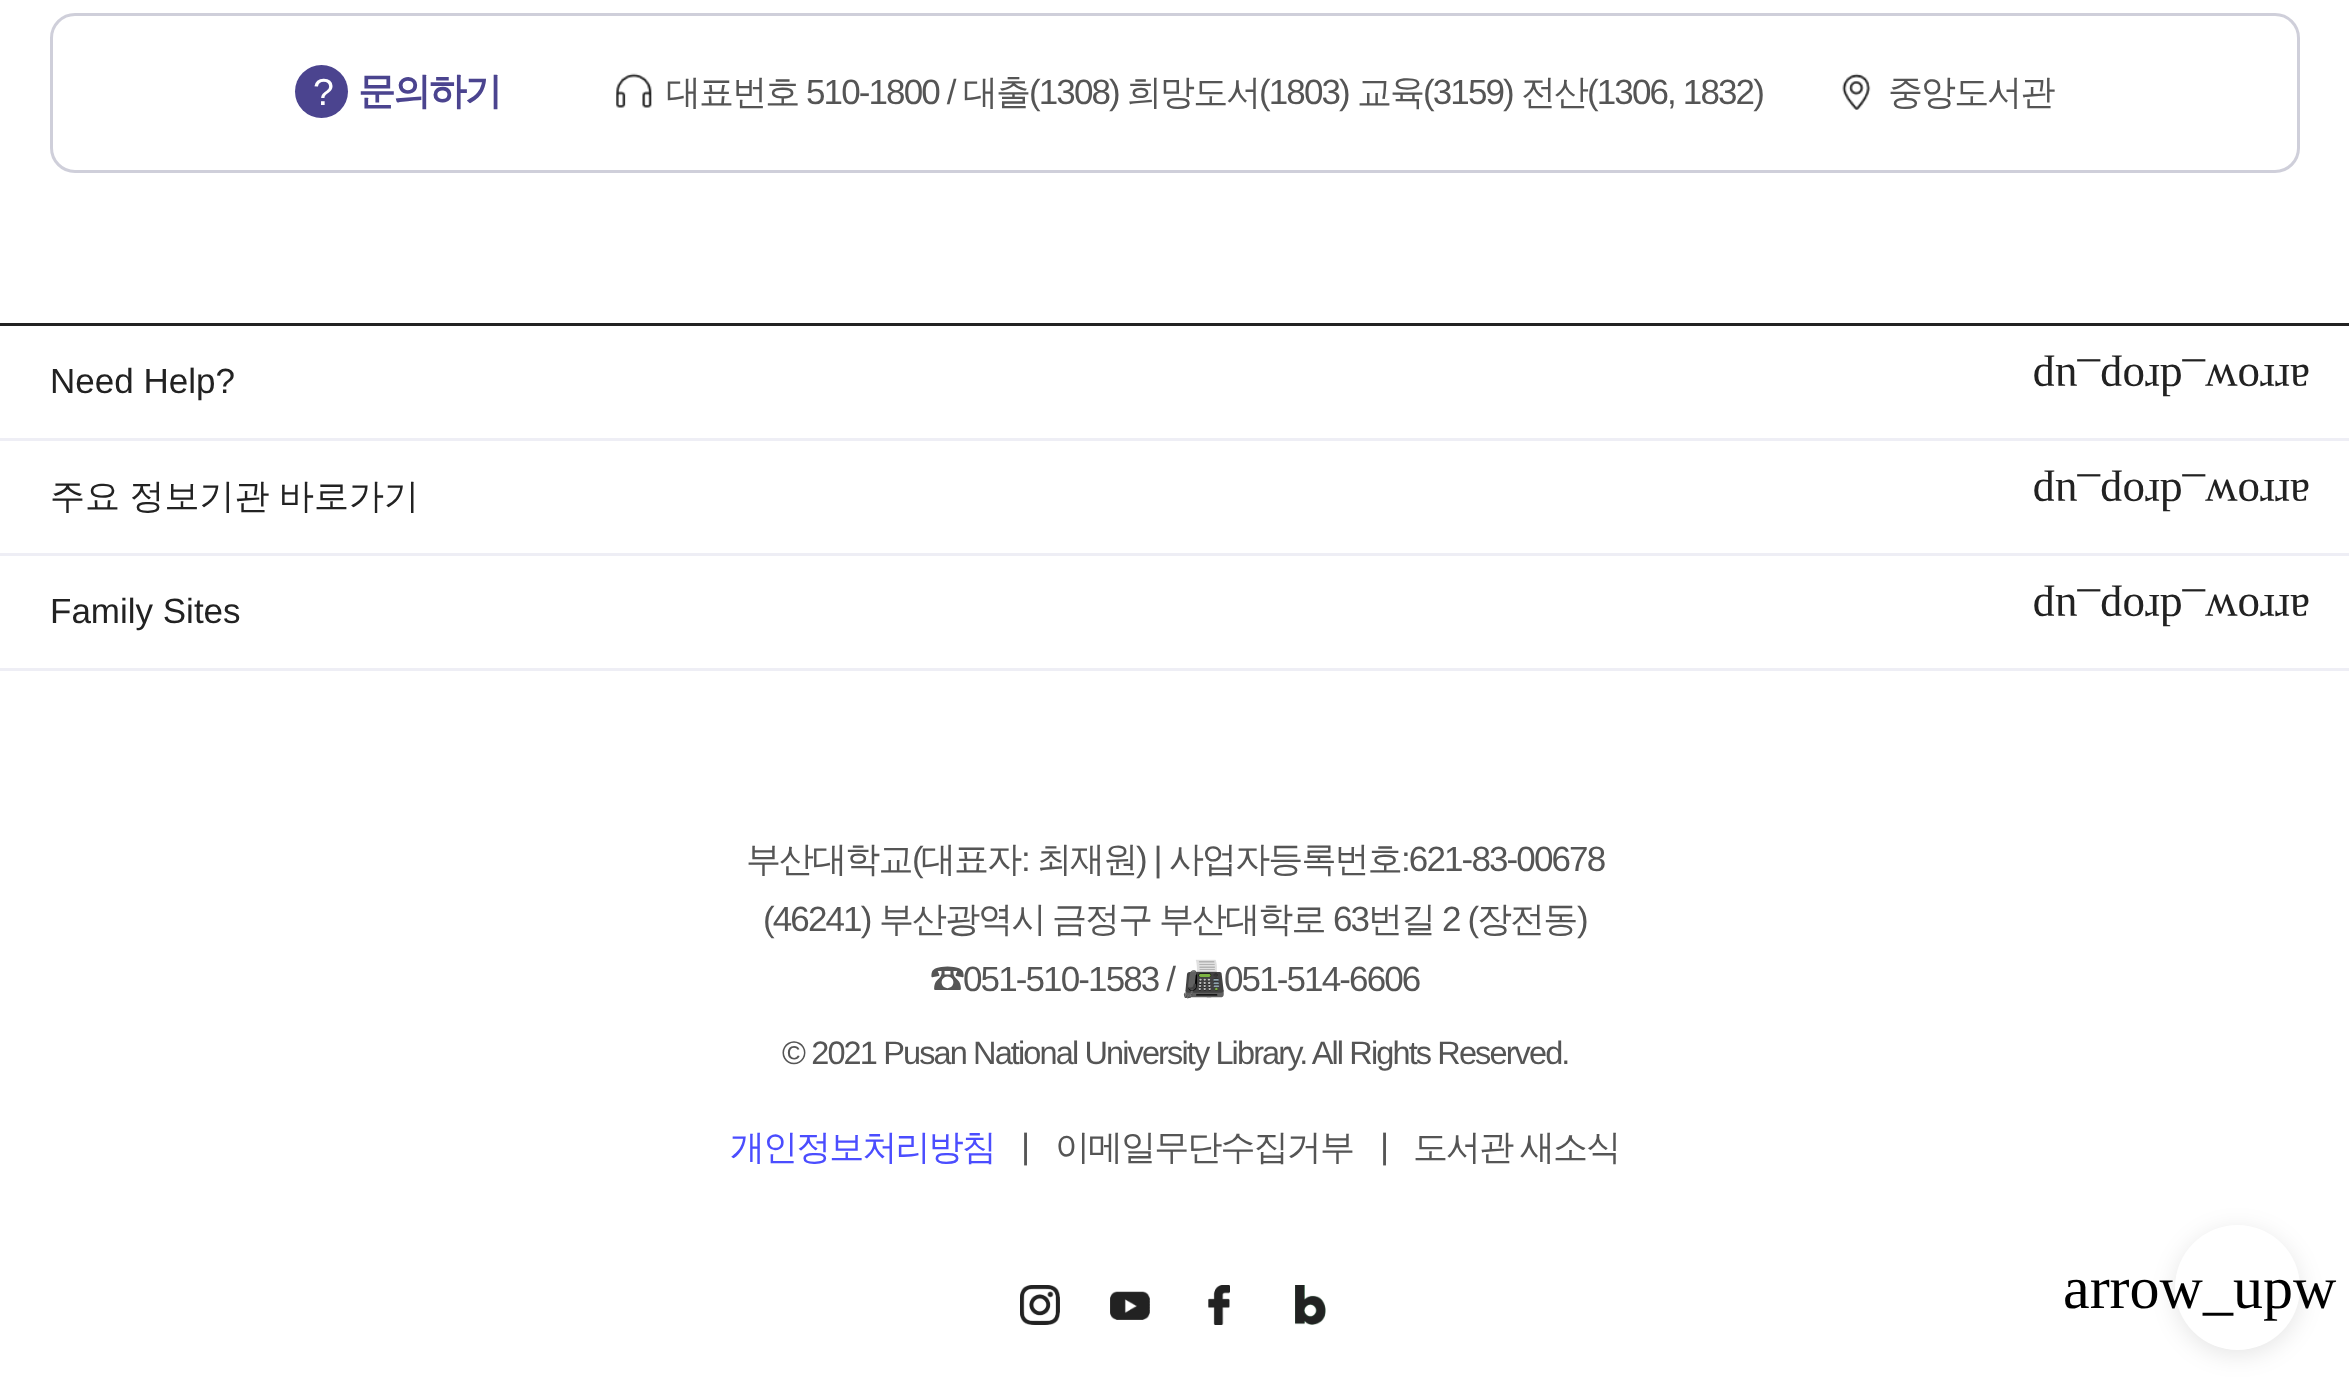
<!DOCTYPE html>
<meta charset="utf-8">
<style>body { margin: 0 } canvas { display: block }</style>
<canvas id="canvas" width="2349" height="1400"></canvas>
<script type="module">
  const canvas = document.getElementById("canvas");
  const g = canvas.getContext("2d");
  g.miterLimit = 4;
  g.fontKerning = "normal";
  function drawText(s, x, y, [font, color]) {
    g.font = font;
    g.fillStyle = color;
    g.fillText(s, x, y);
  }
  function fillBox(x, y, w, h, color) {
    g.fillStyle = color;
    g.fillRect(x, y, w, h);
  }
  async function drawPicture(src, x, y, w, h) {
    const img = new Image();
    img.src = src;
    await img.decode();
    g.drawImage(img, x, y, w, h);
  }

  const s1 = ["37.5px Liberation Sans", "#FFFFFF"];
  const s2 = ["bold 37.5px WenQuanYi Zen Hei", "#4B448F"];
  const s3 = ["500 35px WenQuanYi Zen Hei", "#555555"];
  const s4 = ["35px Liberation Sans", "#555555"];
  const s5 = ["35px Liberation Sans", "#222222"];
  const s6 = ["500 35px WenQuanYi Zen Hei", "#222222"];
  const s7 = ["35px Noto Sans KR", "#555555"];
  const s8 = ["35px Noto Color Emoji", "#555555"];
  const s9 = ["32.5px Liberation Sans", "#555555"];
  const s10 = ["500 35px WenQuanYi Zen Hei", "#4B4DFF"];
  const s11 = ["60px Liberation Serif", "#000000"];

  fillBox(0, 0, 2349, 1400, "#FFFFFF");
  g.beginPath();
  g.roundRect(51.5, 14.5, 2247, 157, 23.5);
  g.strokeStyle = "#CFCFDA";
  g.lineWidth = 3;
  g.stroke();
  g.fillStyle = "#4B448F";
  g.beginPath();
  g.arc(321.5, 91.5, 26.5, 0, Math.PI * 2);
  g.fill();
  g.letterSpacing = "-1.88px";
  drawText("?", 313, 105, s1);
  drawText("문의하기", 358, 104, s2);
  await drawPicture("pic1.png", 616, 73, 36, 35);
  drawText("대표번호", 666, 104, s3);
  drawText("510-1800 /", 806, 104, s4);
  drawText("대출", 963, 104, s3);
  drawText("(1308)", 1029, 104, s4);
  drawText("희망도서", 1127, 104, s3);
  drawText("(1803)", 1259, 104, s4);
  drawText("교육", 1357, 104, s3);
  drawText("(3159)", 1423, 104, s4);
  drawText("전산", 1521, 104, s3);
  drawText("(1306, 1832)", 1587, 104, s4);
  await drawPicture("pic2.png", 1842, 73, 29, 37);
  drawText("중앙도서관", 1888, 104, s3);
  fillBox(0, 323, 2349, 3, "#222222");
  fillBox(0, 438, 2349, 3, "#EEEEF5");
  g.letterSpacing = "0px";
  drawText("Need Help?", 50, 393, s5);
  g.font = "45px Liberation Serif";
  g.save();
  g.translate(2310, 365);
  g.rotate(180 * Math.PI / 180);
  g.fillText("arrow_drop_up", 0, 0);
  g.restore();
  fillBox(0, 553, 2349, 3, "#EEEEF5");
  g.wordSpacing = "-1px";
  drawText("주요 정보기관 바로가기", 50, 508, s6);
  g.wordSpacing = "0px";
  g.font = "45px Liberation Serif";
  g.save();
  g.translate(2310, 480);
  g.rotate(180 * Math.PI / 180);
  g.fillText("arrow_drop_up", 0, 0);
  g.restore();
  fillBox(0, 668, 2349, 3, "#EEEEF5");
  drawText("Family Sites", 50, 623, s5);
  g.font = "45px Liberation Serif";
  g.save();
  g.translate(2310, 595);
  g.rotate(180 * Math.PI / 180);
  g.fillText("arrow_drop_up", 0, 0);
  g.restore();
  g.letterSpacing = "-1.88px";
  drawText("부산대학교", 746, 871, s3);
  drawText("(", 912, 871, s4);
  drawText("대표자", 921, 871, s3);
  drawText(":", 1021, 871, s4);
  drawText("최재원", 1037, 871, s3);
  drawText(") |", 1136, 871, s4);
  drawText("사업자등록번호", 1169, 871, s3);
  drawText(":621-83-00678", 1401, 871, s4);
  drawText("(46241)", 763, 931, s4);
  drawText("부산광역시", 879, 931, s3);
  drawText("금정구", 1052, 931, s3);
  drawText("부산대학로", 1159, 931, s3);
  drawText("63", 1333, 931, s4);
  drawText("번길", 1368, 931, s3);
  drawText("2 (", 1442, 931, s4);
  drawText("장전동", 1477, 931, s3);
  drawText(")", 1577, 931, s4);
  drawText("☎", 930, 991, s7);
  drawText("051-510-1583 /", 963, 991, s4);
  drawText("📠", 1182, 991, s8);
  drawText("051-514-6606", 1224, 991, s4);
  drawText("© 2021 Pusan National University Library. All Rights Reserved.", 782, 1064, s9);
  drawText("개인정보처리방침", 730, 1159, s10);
  drawText("|", 1021, 1158, s4);
  drawText("이메일무단수집거부", 1055, 1159, s3);
  drawText("|", 1380, 1158, s4);
  g.wordSpacing = "-1px";
  drawText("도서관 새소식", 1413, 1159, s3);
  await drawPicture("pic3.png", 1020, 1285, 40, 40);
  await drawPicture("pic4.png", 1110, 1291, 40, 29);
  await drawPicture("pic5.png", 1208, 1285, 22, 40);
  await drawPicture("pic6.png", 1295, 1285, 31, 40);
  g.fillStyle = "rgba(0, 0, 0, 0.1)";
  g.filter = "blur(12.5px)";
  g.beginPath();
  g.roundRect(2175, 1230, 125, 125, 62.5);
  g.fill();
  g.filter = "none";
  g.fillStyle = "#FFFFFF";
  g.beginPath();
  g.arc(2237.5, 1287.5, 62.5, 0, Math.PI * 2);
  g.fill();
  g.letterSpacing = "0px";
  g.wordSpacing = "0px";
  drawText("arrow_upw", 2063, 1308, s11);
</script>
